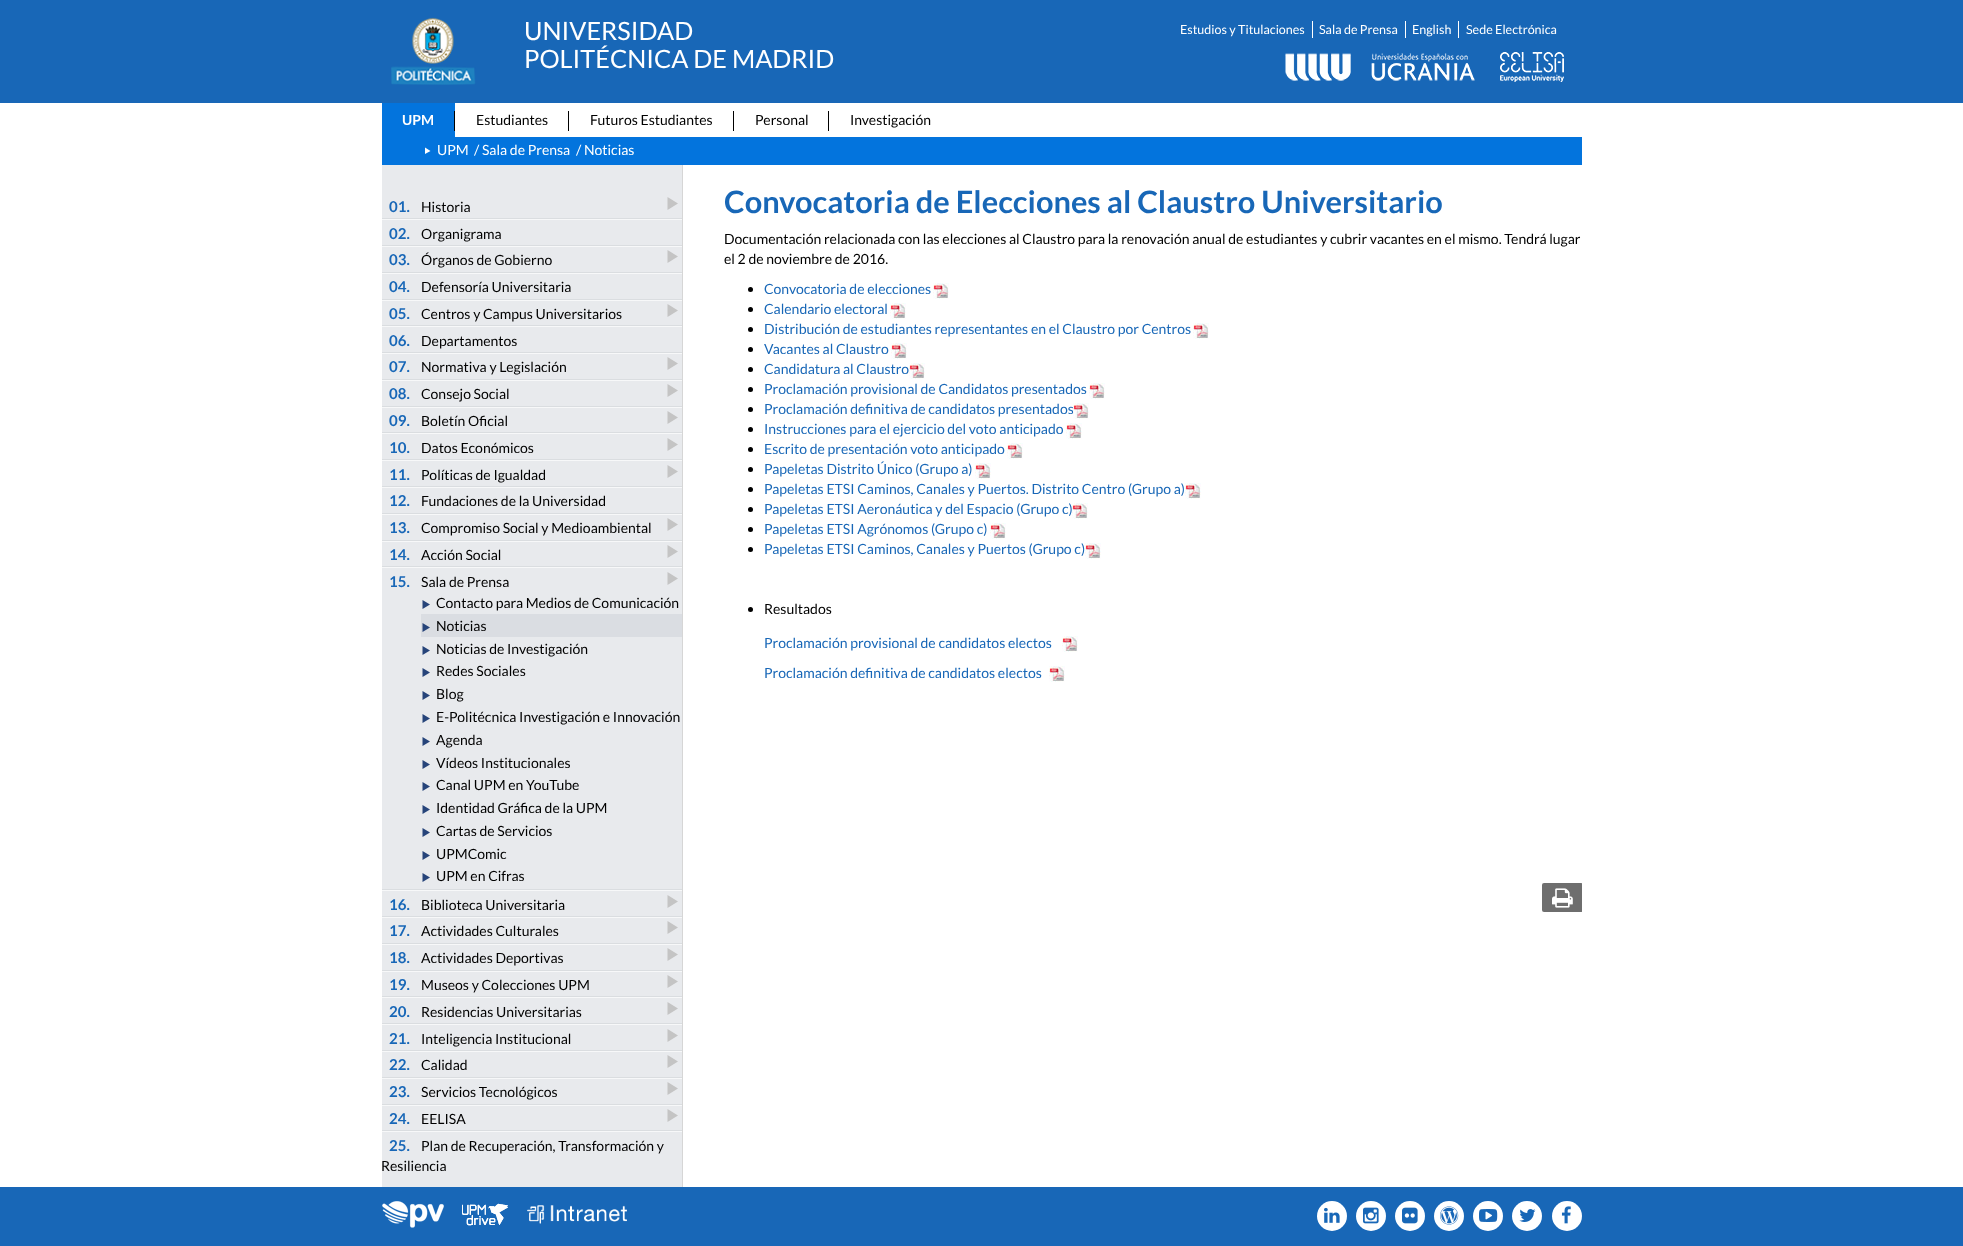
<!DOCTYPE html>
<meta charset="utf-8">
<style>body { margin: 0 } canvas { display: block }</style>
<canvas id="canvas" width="1963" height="1246"></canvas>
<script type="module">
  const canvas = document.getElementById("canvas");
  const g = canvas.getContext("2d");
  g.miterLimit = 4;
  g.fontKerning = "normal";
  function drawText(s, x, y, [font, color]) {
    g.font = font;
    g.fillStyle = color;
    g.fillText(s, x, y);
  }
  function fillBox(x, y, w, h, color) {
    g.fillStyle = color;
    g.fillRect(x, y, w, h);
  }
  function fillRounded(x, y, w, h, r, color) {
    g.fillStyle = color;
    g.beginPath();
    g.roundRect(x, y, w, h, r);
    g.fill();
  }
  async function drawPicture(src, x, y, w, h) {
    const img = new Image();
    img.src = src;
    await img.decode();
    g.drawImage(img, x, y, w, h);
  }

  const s1 = ["25.25px Lato", "#FFFFFF"];
  const s2 = ["12.5px Lato", "#FFFFFF"];
  const s3 = ["bold 14px Lato", "#FFFFFF"];
  const s4 = ["14px Lato", "#000000"];
  const s5 = ["14px Lato", "#FFFFFF"];
  const s6 = ["bold 15px Lato", "#1867B7"];
  const s7 = ["bold 30.8px Lato", "#1867B7"];
  const s8 = ["14px Lato", "#1867B7"];

  fillBox(0, 0, 1963, 1246, "#FFFFFF");
  fillBox(0, 0, 1963, 103, "#1867B7");
  await drawPicture("pic1.png", 391, 17, 85, 68);
  drawText("UNIVERSIDAD", 524, 40, s1);
  drawText("POLITÉCNICA DE MADRID", 524, 68, s1);
  fillBox(1312, 21, 1, 17, "#FFFFFF");
  drawText("Estudios y Titulaciones", 1180, 34, s2);
  fillBox(1405, 21, 1, 17, "#FFFFFF");
  drawText("Sala de Prensa", 1319, 34, s2);
  fillBox(1458, 21, 1, 17, "#FFFFFF");
  drawText("English", 1412, 34, s2);
  drawText("Sede Electrónica", 1466, 34, s2);
  await drawPicture("pic2.png", 1285, 53, 190, 28);
  await drawPicture("pic3.png", 1500, 52, 64, 30);
  fillBox(382, 103, 73, 34, "#0374DD");
  drawText("UPM", 402, 125, s3);
  fillBox(454, 111, 1, 20, "#000000");
  drawText("Estudiantes", 476, 125, s4);
  fillBox(568, 111, 1, 20, "#000000");
  drawText("Futuros Estudiantes", 590, 125, s4);
  fillBox(733, 111, 1, 20, "#000000");
  drawText("Personal", 755, 125, s4);
  fillBox(828, 111, 1, 20, "#000000");
  drawText("Investigación", 850, 125, s4);
  fillBox(382, 137, 1200, 28, "#0374DD");
  g.fillStyle = "#FFFFFF";
  g.beginPath();
  g.moveTo(425, 154);
  g.lineTo(430.5, 151);
  g.lineTo(425, 147.5);
  g.closePath();
  g.fill();
  drawText("UPM", 437, 155, s5);
  drawText("/ Sala de Prensa", 474, 155, s5);
  drawText("/ Noticias", 576, 155, s5);
  fillBox(0, 1187, 1963, 59, "#1867B7");
  await drawPicture("pic6.png", 382, 1201, 62, 27);
  await drawPicture("pic7.png", 462, 1203, 46, 23);
  await drawPicture("pic8.png", 527, 1205, 100, 19);
  g.save();
  g.beginPath();
  g.rect(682, 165, 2, 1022);
  g.clip();
  g.fillStyle = "rgba(50, 50, 50, 0.2)";
  g.filter = "blur(0.5px)";
  g.beginPath();
  g.rect(383, 165, 300, 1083);
  g.fill();
  g.filter = "none";
  g.restore();
  fillBox(382, 165, 300, 1022, "#E8EAED");
  fillBox(382, 218, 300, 1, "#DADDE0");
  drawText("01.", 389, 212, s6);
  drawText("Historia", 421, 212, s4);
  g.fillStyle = "#C4C4C4";
  g.beginPath();
  g.moveTo(667.5, 210);
  g.lineTo(678, 203.5);
  g.lineTo(667.5, 197);
  g.closePath();
  g.fill();
  fillBox(382, 219, 300, 1, "#F7F8F9");
  fillBox(382, 245, 300, 1, "#DADDE0");
  drawText("02.", 389, 239, s6);
  drawText("Organigrama", 421, 239, s4);
  fillBox(382, 246, 300, 1, "#F7F8F9");
  fillBox(382, 272, 300, 1, "#DADDE0");
  drawText("03.", 389, 265, s6);
  drawText("Órganos de Gobierno", 421, 265, s4);
  g.fillStyle = "#C4C4C4";
  g.beginPath();
  g.moveTo(667.5, 263);
  g.lineTo(678, 256.5);
  g.lineTo(667.5, 250);
  g.closePath();
  g.fill();
  fillBox(382, 273, 300, 1, "#F7F8F9");
  fillBox(382, 299, 300, 1, "#DADDE0");
  drawText("04.", 389, 292, s6);
  drawText("Defensoría Universitaria", 421, 292, s4);
  fillBox(382, 300, 300, 1, "#F7F8F9");
  fillBox(382, 325, 300, 1, "#DADDE0");
  drawText("05.", 389, 319, s6);
  drawText("Centros y Campus Universitarios", 421, 319, s4);
  g.fillStyle = "#C4C4C4";
  g.beginPath();
  g.moveTo(667.5, 317);
  g.lineTo(678, 310.5);
  g.lineTo(667.5, 304);
  g.closePath();
  g.fill();
  fillBox(382, 326, 300, 1, "#F7F8F9");
  fillBox(382, 352, 300, 1, "#DADDE0");
  drawText("06.", 389, 346, s6);
  drawText("Departamentos", 421, 346, s4);
  fillBox(382, 353, 300, 1, "#F7F8F9");
  fillBox(382, 379, 300, 1, "#DADDE0");
  drawText("07.", 389, 372, s6);
  drawText("Normativa y Legislación", 421, 372, s4);
  fillBox(382, 380, 300, 1, "#F7F8F9");
  g.fillStyle = "#C4C4C4";
  g.beginPath();
  g.moveTo(667.5, 370);
  g.lineTo(678, 363.5);
  g.lineTo(667.5, 357);
  g.closePath();
  g.moveTo(667.5, 397);
  g.lineTo(678, 390.5);
  g.lineTo(667.5, 384);
  g.closePath();
  g.fill();
  fillBox(382, 406, 300, 1, "#DADDE0");
  drawText("08.", 389, 399, s6);
  drawText("Consejo Social", 421, 399, s4);
  fillBox(382, 407, 300, 1, "#F7F8F9");
  fillBox(382, 432, 300, 1, "#DADDE0");
  drawText("09.", 389, 426, s6);
  drawText("Boletín Oficial", 421, 426, s4);
  fillBox(382, 433, 300, 1, "#F7F8F9");
  g.fillStyle = "#C4C4C4";
  g.beginPath();
  g.moveTo(667.5, 424);
  g.lineTo(678, 417.5);
  g.lineTo(667.5, 411);
  g.closePath();
  g.moveTo(667.5, 451);
  g.lineTo(678, 444.5);
  g.lineTo(667.5, 438);
  g.closePath();
  g.fill();
  fillBox(382, 459, 300, 1, "#DADDE0");
  drawText("10.", 389, 453, s6);
  drawText("Datos Económicos", 421, 453, s4);
  fillBox(382, 460, 300, 1, "#F7F8F9");
  fillBox(382, 486, 300, 1, "#DADDE0");
  drawText("11.", 389, 480, s6);
  drawText("Políticas de Igualdad", 421, 480, s4);
  g.fillStyle = "#C4C4C4";
  g.beginPath();
  g.moveTo(667.5, 478);
  g.lineTo(678, 471.5);
  g.lineTo(667.5, 465);
  g.closePath();
  g.fill();
  fillBox(382, 487, 300, 1, "#F7F8F9");
  fillBox(382, 513, 300, 1, "#DADDE0");
  drawText("12.", 389, 506, s6);
  drawText("Fundaciones de la Universidad", 421, 506, s4);
  fillBox(382, 514, 300, 1, "#F7F8F9");
  fillBox(382, 540, 300, 1, "#DADDE0");
  drawText("13.", 389, 533, s6);
  drawText("Compromiso Social y Medioambiental", 421, 533, s4);
  fillBox(382, 541, 300, 1, "#F7F8F9");
  g.fillStyle = "#C4C4C4";
  g.beginPath();
  g.moveTo(667.5, 531);
  g.lineTo(678, 524.5);
  g.lineTo(667.5, 518);
  g.closePath();
  g.moveTo(667.5, 558);
  g.lineTo(678, 551.5);
  g.lineTo(667.5, 545);
  g.closePath();
  g.fill();
  fillBox(382, 566, 300, 1, "#DADDE0");
  drawText("14.", 389, 560, s6);
  drawText("Acción Social", 421, 560, s4);
  fillBox(382, 567, 300, 1, "#F7F8F9");
  fillBox(382, 889, 300, 1, "#DADDE0");
  drawText("15.", 389, 587, s6);
  drawText("Sala de Prensa", 421, 587, s4);
  g.fillStyle = "#C4C4C4";
  g.beginPath();
  g.moveTo(667.5, 585);
  g.lineTo(678, 578.5);
  g.lineTo(667.5, 572);
  g.closePath();
  g.fill();
  fillBox(421, 614, 261, 23, "#DADDE2");
  g.fillStyle = "#26447A";
  g.beginPath();
  g.moveTo(422.5, 609);
  g.lineTo(430, 604.5);
  g.lineTo(422.5, 600);
  g.closePath();
  g.moveTo(422.5, 632);
  g.lineTo(430, 627.5);
  g.lineTo(422.5, 623);
  g.closePath();
  g.moveTo(422.5, 655);
  g.lineTo(430, 650.5);
  g.lineTo(422.5, 646);
  g.closePath();
  g.fill();
  drawText("Contacto para Medios de Comunicación", 436, 608, s4);
  drawText("Noticias", 436, 631, s4);
  drawText("Noticias de Investigación", 436, 654, s4);
  g.fillStyle = "#26447A";
  g.beginPath();
  g.moveTo(422.5, 677);
  g.lineTo(430, 672.5);
  g.lineTo(422.5, 668);
  g.closePath();
  g.moveTo(422.5, 700);
  g.lineTo(430, 695.5);
  g.lineTo(422.5, 691);
  g.closePath();
  g.moveTo(422.5, 723);
  g.lineTo(430, 718.5);
  g.lineTo(422.5, 714);
  g.closePath();
  g.fill();
  drawText("Redes Sociales", 436, 676, s4);
  drawText("Blog", 436, 699, s4);
  drawText("E-Politécnica Investigación e Innovación", 436, 722, s4);
  g.fillStyle = "#26447A";
  g.beginPath();
  g.moveTo(422.5, 746);
  g.lineTo(430, 741.5);
  g.lineTo(422.5, 737);
  g.closePath();
  g.moveTo(422.5, 769);
  g.lineTo(430, 764.5);
  g.lineTo(422.5, 760);
  g.closePath();
  g.moveTo(422.5, 791);
  g.lineTo(430, 786.5);
  g.lineTo(422.5, 782);
  g.closePath();
  g.fill();
  drawText("Agenda", 436, 745, s4);
  drawText("Vídeos Institucionales", 436, 768, s4);
  drawText("Canal UPM en YouTube", 436, 790, s4);
  g.fillStyle = "#26447A";
  g.beginPath();
  g.moveTo(422.5, 814);
  g.lineTo(430, 809.5);
  g.lineTo(422.5, 805);
  g.closePath();
  g.moveTo(422.5, 837);
  g.lineTo(430, 832.5);
  g.lineTo(422.5, 828);
  g.closePath();
  g.moveTo(422.5, 860);
  g.lineTo(430, 855.5);
  g.lineTo(422.5, 851);
  g.closePath();
  g.fill();
  drawText("Identidad Gráfica de la UPM", 436, 813, s4);
  drawText("Cartas de Servicios", 436, 836, s4);
  drawText("UPMComic", 436, 859, s4);
  g.fillStyle = "#26447A";
  g.beginPath();
  g.moveTo(422.5, 882);
  g.lineTo(430, 877.5);
  g.lineTo(422.5, 873);
  g.closePath();
  g.fill();
  drawText("UPM en Cifras", 436, 881, s4);
  fillBox(382, 890, 300, 1, "#F7F8F9");
  fillBox(382, 916, 300, 1, "#DADDE0");
  drawText("16.", 389, 910, s6);
  drawText("Biblioteca Universitaria", 421, 910, s4);
  fillBox(382, 917, 300, 1, "#F7F8F9");
  g.fillStyle = "#C4C4C4";
  g.beginPath();
  g.moveTo(667.5, 908);
  g.lineTo(678, 901.5);
  g.lineTo(667.5, 895);
  g.closePath();
  g.moveTo(667.5, 934);
  g.lineTo(678, 927.5);
  g.lineTo(667.5, 921);
  g.closePath();
  g.fill();
  fillBox(382, 943, 300, 1, "#DADDE0");
  drawText("17.", 389, 936, s6);
  drawText("Actividades Culturales", 421, 936, s4);
  fillBox(382, 944, 300, 1, "#F7F8F9");
  fillBox(382, 970, 300, 1, "#DADDE0");
  drawText("18.", 389, 963, s6);
  drawText("Actividades Deportivas", 421, 963, s4);
  fillBox(382, 971, 300, 1, "#F7F8F9");
  g.fillStyle = "#C4C4C4";
  g.beginPath();
  g.moveTo(667.5, 961);
  g.lineTo(678, 954.5);
  g.lineTo(667.5, 948);
  g.closePath();
  g.moveTo(667.5, 988);
  g.lineTo(678, 981.5);
  g.lineTo(667.5, 975);
  g.closePath();
  g.fill();
  fillBox(382, 996, 300, 1, "#DADDE0");
  drawText("19.", 389, 990, s6);
  drawText("Museos y Colecciones UPM", 421, 990, s4);
  fillBox(382, 997, 300, 1, "#F7F8F9");
  fillBox(382, 1023, 300, 1, "#DADDE0");
  drawText("20.", 389, 1017, s6);
  drawText("Residencias Universitarias", 421, 1017, s4);
  fillBox(382, 1024, 300, 1, "#F7F8F9");
  g.fillStyle = "#C4C4C4";
  g.beginPath();
  g.moveTo(667.5, 1015);
  g.lineTo(678, 1008.5);
  g.lineTo(667.5, 1002);
  g.closePath();
  g.moveTo(667.5, 1042);
  g.lineTo(678, 1035.5);
  g.lineTo(667.5, 1029);
  g.closePath();
  g.fill();
  fillBox(382, 1050, 300, 1, "#DADDE0");
  drawText("21.", 389, 1044, s6);
  drawText("Inteligencia Institucional", 421, 1044, s4);
  fillBox(382, 1051, 300, 1, "#F7F8F9");
  fillBox(382, 1077, 300, 1, "#DADDE0");
  drawText("22.", 389, 1070, s6);
  drawText("Calidad", 421, 1070, s4);
  fillBox(382, 1078, 300, 1, "#F7F8F9");
  g.fillStyle = "#C4C4C4";
  g.beginPath();
  g.moveTo(667.5, 1068);
  g.lineTo(678, 1061.5);
  g.lineTo(667.5, 1055);
  g.closePath();
  g.moveTo(667.5, 1095);
  g.lineTo(678, 1088.5);
  g.lineTo(667.5, 1082);
  g.closePath();
  g.fill();
  fillBox(382, 1104, 300, 1, "#DADDE0");
  drawText("23.", 389, 1097, s6);
  drawText("Servicios Tecnológicos", 421, 1097, s4);
  fillBox(382, 1105, 300, 1, "#F7F8F9");
  fillBox(382, 1130, 300, 1, "#DADDE0");
  drawText("24.", 389, 1124, s6);
  drawText("EELISA", 421, 1124, s4);
  g.fillStyle = "#C4C4C4";
  g.beginPath();
  g.moveTo(667.5, 1122);
  g.lineTo(678, 1115.5);
  g.lineTo(667.5, 1109);
  g.closePath();
  g.fill();
  fillBox(382, 1131, 300, 1, "#F7F8F9");
  drawText("25.", 389, 1151, s6);
  drawText("Plan de Recuperación, Transformación y", 421, 1151, s4);
  drawText("Resiliencia", 381, 1171, s4);
  drawText("Convocatoria de Elecciones al Claustro Universitario", 724, 213, s7);
  drawText("Documentación relacionada con las elecciones al Claustro para la renovación anual de estudiantes y cubrir vacantes en el mismo. Tendrá lugar", 724, 244, s4);
  drawText("el 2 de noviembre de 2016.", 724, 264, s4);
  g.beginPath();
  g.arc(750.5, 289.5, 2.5, 0, Math.PI * 2);
  g.fill();
  drawText("Convocatoria de elecciones", 764, 294, s8);
  await drawPicture("pic4.png", 933, 283, 16, 16);
  g.fillStyle = "#000000";
  g.beginPath();
  g.arc(750.5, 309.5, 2.5, 0, Math.PI * 2);
  g.fill();
  drawText("Calendario electoral", 764, 314, s8);
  await drawPicture("pic4.png", 890, 303, 16, 16);
  g.fillStyle = "#000000";
  g.beginPath();
  g.arc(750.5, 329.5, 2.5, 0, Math.PI * 2);
  g.fill();
  drawText("Distribución de estudiantes representantes en el Claustro por Centros", 764, 334, s8);
  await drawPicture("pic4.png", 1193, 323, 16, 16);
  g.fillStyle = "#000000";
  g.beginPath();
  g.arc(750.5, 349.5, 2.5, 0, Math.PI * 2);
  g.fill();
  drawText("Vacantes al Claustro", 764, 354, s8);
  await drawPicture("pic4.png", 891, 343, 16, 16);
  g.fillStyle = "#000000";
  g.beginPath();
  g.arc(750.5, 369.5, 2.5, 0, Math.PI * 2);
  g.fill();
  drawText("Candidatura al Claustro", 764, 374, s8);
  await drawPicture("pic4.png", 909, 363, 16, 16);
  g.fillStyle = "#000000";
  g.beginPath();
  g.arc(750.5, 389.5, 2.5, 0, Math.PI * 2);
  g.fill();
  drawText("Proclamación provisional de Candidatos presentados", 764, 394, s8);
  await drawPicture("pic4.png", 1089, 383, 16, 16);
  g.fillStyle = "#000000";
  g.beginPath();
  g.arc(750.5, 409.5, 2.5, 0, Math.PI * 2);
  g.fill();
  drawText("Proclamación definitiva de candidatos presentados", 764, 414, s8);
  await drawPicture("pic4.png", 1073, 403, 16, 16);
  g.fillStyle = "#000000";
  g.beginPath();
  g.arc(750.5, 429.5, 2.5, 0, Math.PI * 2);
  g.fill();
  drawText("Instrucciones para el ejercicio del voto anticipado", 764, 434, s8);
  await drawPicture("pic4.png", 1066, 423, 16, 16);
  g.fillStyle = "#000000";
  g.beginPath();
  g.arc(750.5, 449.5, 2.5, 0, Math.PI * 2);
  g.fill();
  drawText("Escrito de presentación voto anticipado", 764, 454, s8);
  await drawPicture("pic4.png", 1007, 443, 16, 16);
  g.fillStyle = "#000000";
  g.beginPath();
  g.arc(750.5, 469.5, 2.5, 0, Math.PI * 2);
  g.fill();
  drawText("Papeletas Distrito Único (Grupo a)", 764, 474, s8);
  await drawPicture("pic4.png", 975, 463, 16, 16);
  g.fillStyle = "#000000";
  g.beginPath();
  g.arc(750.5, 489.5, 2.5, 0, Math.PI * 2);
  g.fill();
  drawText("Papeletas ETSI Caminos, Canales y Puertos. Distrito Centro (Grupo a)", 764, 494, s8);
  await drawPicture("pic4.png", 1185, 483, 16, 16);
  g.fillStyle = "#000000";
  g.beginPath();
  g.arc(750.5, 509.5, 2.5, 0, Math.PI * 2);
  g.fill();
  drawText("Papeletas ETSI Aeronáutica y del Espacio (Grupo c)", 764, 514, s8);
  await drawPicture("pic4.png", 1072, 503, 16, 16);
  g.fillStyle = "#000000";
  g.beginPath();
  g.arc(750.5, 529.5, 2.5, 0, Math.PI * 2);
  g.fill();
  drawText("Papeletas ETSI Agrónomos (Grupo c)", 764, 534, s8);
  await drawPicture("pic4.png", 990, 523, 16, 16);
  g.fillStyle = "#000000";
  g.beginPath();
  g.arc(750.5, 549.5, 2.5, 0, Math.PI * 2);
  g.fill();
  drawText("Papeletas ETSI Caminos, Canales y Puertos (Grupo c)", 764, 554, s8);
  await drawPicture("pic4.png", 1085, 543, 16, 16);
  g.fillStyle = "#000000";
  g.beginPath();
  g.arc(750.5, 609.5, 2.5, 0, Math.PI * 2);
  g.fill();
  drawText("Resultados", 764, 614, s4);
  drawText("Proclamación provisional de candidatos electos", 764, 648, s8);
  await drawPicture("pic4.png", 1062, 636, 16, 16);
  drawText("Proclamación definitiva de candidatos electos", 764, 678, s8);
  await drawPicture("pic4.png", 1049, 666, 16, 16);
  g.save();
  g.beginPath();
  g.rect(382, 165, 1200, 1022);
  g.clip();
  fillRounded(1542, 883, 41, 29, 2, "#6E6E6E");
  g.restore();
  await drawPicture("pic5.png", 1552, 888, 21, 20);
  g.fillStyle = "#FFFFFF";
  g.beginPath();
  g.arc(1332, 1216, 15, 0, Math.PI * 2);
  g.fill();
  await drawPicture("pic9.png", 1324, 1207, 16, 16);
  g.beginPath();
  g.arc(1371, 1216, 15, 0, Math.PI * 2);
  g.fill();
  await drawPicture("pic10.png", 1363, 1207, 16, 17);
  g.beginPath();
  g.arc(1410, 1216, 15, 0, Math.PI * 2);
  g.fill();
  await drawPicture("pic11.png", 1402, 1207, 16, 17);
  g.beginPath();
  g.arc(1449, 1216, 15, 0, Math.PI * 2);
  g.fill();
  await drawPicture("pic12.png", 1440, 1206, 19, 19);
  g.beginPath();
  g.arc(1488, 1216, 15, 0, Math.PI * 2);
  g.fill();
  await drawPicture("pic13.png", 1479, 1209, 19, 13);
  g.beginPath();
  g.arc(1527, 1216, 15, 0, Math.PI * 2);
  g.fill();
  await drawPicture("pic14.png", 1519, 1209, 17, 13);
  g.beginPath();
  g.arc(1567, 1216, 15, 0, Math.PI * 2);
  g.fill();
  await drawPicture("pic15.png", 1561, 1206, 10, 18);
</script>
